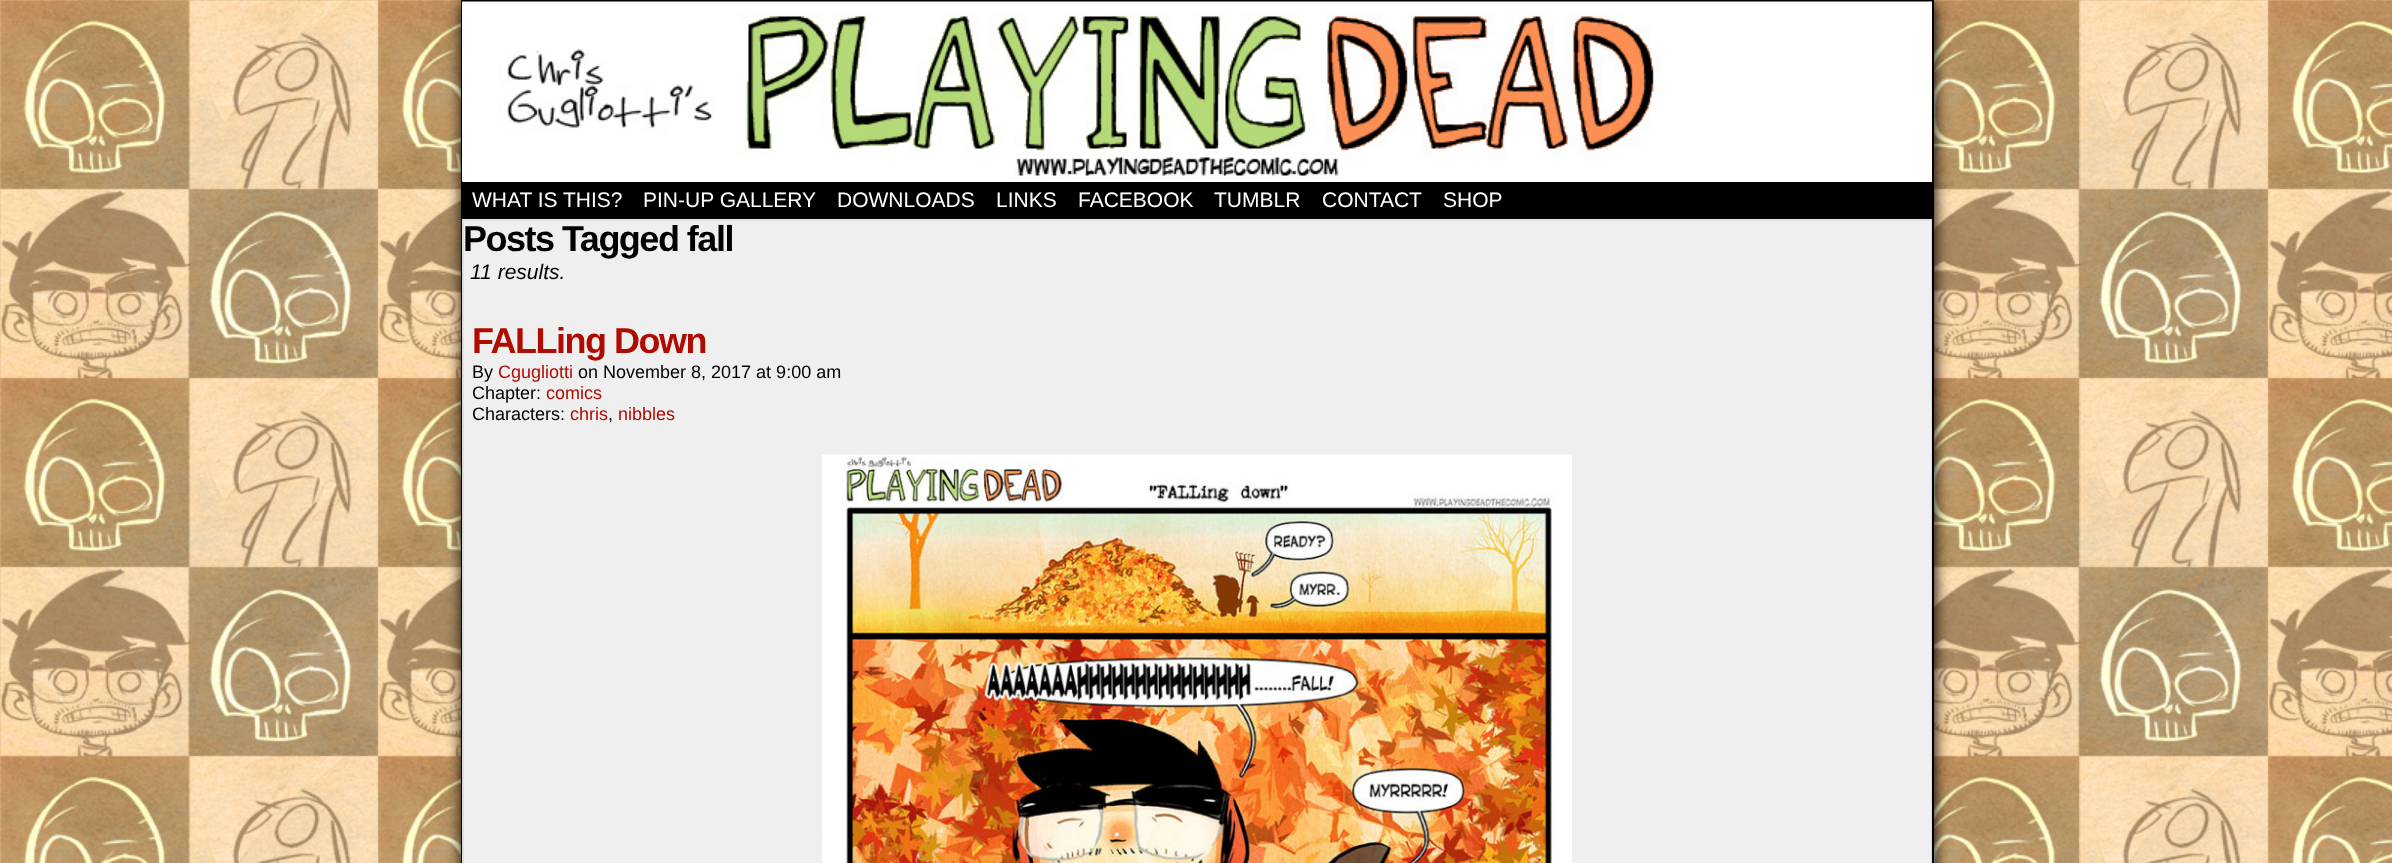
<!DOCTYPE html>
<meta charset="utf-8">
<style>body { margin: 0 } canvas { display: block }</style>
<canvas id="canvas" width="2392" height="863"></canvas>
<script type="module">
  const canvas = document.getElementById("canvas");
  const g = canvas.getContext("2d");
  g.miterLimit = 4;
  g.fontKerning = "normal";
  function drawText(s, x, y, [font, color]) {
    g.font = font;
    g.fillStyle = color;
    g.fillText(s, x, y);
  }
  function fillBox(x, y, w, h, color) {
    g.fillStyle = color;
    g.fillRect(x, y, w, h);
  }
  async function drawPicture(src, x, y, w, h) {
    const img = new Image();
    img.src = src;
    await img.decode();
    g.drawImage(img, x, y, w, h);
  }

  const s1 = ["21px Liberation Sans", "#FFFFFF"];
  const s2 = ["bold 36px Liberation Sans", "#000000"];
  const s3 = ["italic 21px Liberation Sans", "#000000"];
  const s4 = ["bold 36px Liberation Sans", "#B00B00"];
  const s5 = ["18px Liberation Sans", "#000000"];
  const s6 = ["18px Liberation Sans", "#B00B00"];

  fillBox(0, 0, 2392, 863, "#FFFFFF");
  await drawPicture("pic1.png", 0, 0, 2392, 863);
  g.fillStyle = "#000000";
  g.filter = "blur(7.5px)";
  g.beginPath();
  g.rect(462, 3, 1473, 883);
  g.fill();
  g.filter = "none";
  fillBox(463, 181, 1469, 1, "#FFFFFF");
  g.strokeStyle = "#000000";
  g.lineWidth = 2;
  g.strokeRect(462, 1, 1471, 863);
  await drawPicture("pic2.png", 462, 1, 1470, 181);
  fillBox(463, 182, 1469, 37, "#000000");
  drawText("WHAT IS THIS?", 472, 207, s1);
  drawText("PIN-UP GALLERY", 643, 207, s1);
  drawText("DOWNLOADS", 837, 207, s1);
  drawText("LINKS", 996, 207, s1);
  drawText("FACEBOOK", 1078, 207, s1);
  drawText("TUMBLR", 1214, 207, s1);
  drawText("CONTACT", 1322, 207, s1);
  drawText("SHOP", 1443, 207, s1);
  fillBox(462, 219, 1470, 644, "#DFDFDF");
  fillBox(464, 221, 1467, 642, "#EFEFEF");
  g.letterSpacing = "-1.5px";
  drawText("Posts Tagged fall", 463, 251, s2);
  g.letterSpacing = "0px";
  drawText("11 results.", 470, 279, s3);
  g.letterSpacing = "-1.5px";
  drawText("FALLing Down", 472, 353, s4);
  g.letterSpacing = "0px";
  drawText("By", 472, 378, s5);
  drawText("Cgugliotti", 498, 378, s6);
  drawText("on November 8, 2017 at 9:00 am", 578, 378, s5);
  g.save();
  g.beginPath();
  g.rect(473, 362, 1449, 63);
  g.clip();
  drawText("Chapter:", 472, 399, s5);
  g.restore();
  drawText("comics", 546, 399, s6);
  g.save();
  g.beginPath();
  g.rect(473, 362, 1449, 63);
  g.clip();
  drawText("Characters:", 472, 420, s5);
  g.restore();
  drawText("chris", 570, 420, s6);
  drawText(",", 608, 420, s5);
  drawText("nibbles", 618, 420, s6);
  await drawPicture("pic3.png", 822, 454, 750, 409);
</script>
